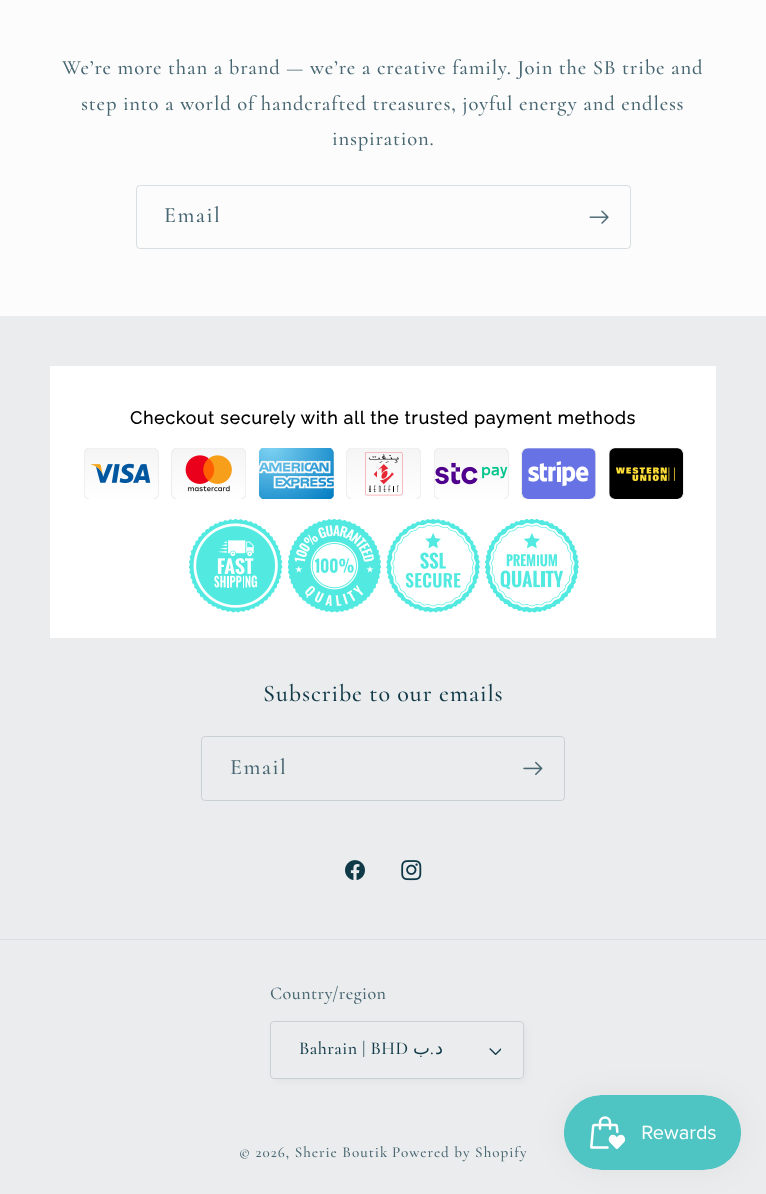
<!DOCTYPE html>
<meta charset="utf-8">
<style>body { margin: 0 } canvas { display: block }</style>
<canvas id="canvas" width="766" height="1194"></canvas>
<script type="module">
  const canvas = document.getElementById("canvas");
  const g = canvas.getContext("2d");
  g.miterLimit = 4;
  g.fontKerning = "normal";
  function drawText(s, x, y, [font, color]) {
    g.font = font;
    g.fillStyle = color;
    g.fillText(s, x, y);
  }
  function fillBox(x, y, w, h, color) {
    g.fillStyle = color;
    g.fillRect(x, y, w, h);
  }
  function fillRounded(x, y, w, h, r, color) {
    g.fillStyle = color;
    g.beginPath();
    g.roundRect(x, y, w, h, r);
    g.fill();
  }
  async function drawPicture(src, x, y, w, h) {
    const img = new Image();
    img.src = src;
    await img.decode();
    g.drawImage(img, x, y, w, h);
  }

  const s1 = ["500 20.6px Cormorant", "#476671"];
  const s2 = ["500 22px Cormorant", "#476671"];
  const s3 = ["bold 17.5px Raleway", "#000000"];
  const s4 = ["500 24px Cormorant", "#103948"];
  const s5 = ["500 18px Cormorant", "#476671"];
  const s6 = ["500 18px Cormorant", "#103948"];
  const s7 = ["18px DejaVu Sans", "#103948"];
  const s8 = ["500 15.1px Cormorant", "#476671"];

  fillBox(0, 0, 766, 1194, "#FCFCFC");
  g.letterSpacing = "0.83px";
  drawText("We’re more than a brand — we’re a creative family. Join the SB tribe and", 62, 74, s1);
  drawText("step into a world of handcrafted treasures, joyful energy and endless", 81, 110, s1);
  drawText("inspiration.", 332, 145, s1);
  g.beginPath();
  g.roundRect(136.5, 185.5, 494, 63, 3.5);
  g.strokeStyle = "rgba(16, 57, 72, 0.15)";
  g.stroke();
  g.letterSpacing = "1.5px";
  drawText("Email", 164, 222, s2);
  await drawPicture("pic1.png", 589, 210, 20, 14);
  fillBox(0, 316, 766, 878, "#EBECED");
  fillBox(50, 366, 666, 272, "#FFFFFF");
  g.letterSpacing = "0.9px";
  drawText("Checkout securely with all the trusted payment methods", 130, 424, s3);
  await drawPicture("pic2.png", 84, 448, 75, 51);
  await drawPicture("pic3.png", 171, 448, 75, 51);
  await drawPicture("pic4.png", 259, 448, 75, 51);
  await drawPicture("pic5.png", 346, 448, 75, 51);
  await drawPicture("pic6.png", 434, 448, 75, 51);
  await drawPicture("pic7.png", 521, 448, 75, 51);
  await drawPicture("pic8.png", 609, 448, 75, 51);
  await drawPicture("pic9.png", 189, 519, 94, 94);
  await drawPicture("pic10.png", 288, 519, 93, 94);
  await drawPicture("pic11.png", 386, 519, 94, 94);
  await drawPicture("pic12.png", 485, 519, 94, 94);
  drawText("Subscribe to our emails", 263, 701, s4);
  g.beginPath();
  g.roundRect(201.5, 736.5, 363, 64, 3.5);
  g.strokeStyle = "#CAD1D4";
  g.stroke();
  g.letterSpacing = "1.5px";
  drawText("Email", 230, 774, s2);
  await drawPicture("pic13.png", 523, 761, 20, 14);
  await drawPicture("pic14.png", 345, 860, 20, 21);
  await drawPicture("pic15.png", 401, 860, 21, 21);
  fillBox(0, 939, 766, 1, "#D9DEE0");
  g.letterSpacing = "0.5px";
  drawText("Country/region", 270, 999, s5);
  g.fillStyle = "rgba(16, 57, 72, 0.05)";
  g.filter = "blur(3px)";
  g.beginPath();
  g.roundRect(273, 1024, 253, 57, 4);
  g.fill();
  g.filter = "none";
  fillRounded(270, 1021, 254, 58, 4, "#EBECED");
  await drawPicture("pic16.png", 489, 1048, 12, 7);
  g.beginPath();
  g.roundRect(270.5, 1021.5, 253, 57, 3.5);
  g.stroke();
  drawText("Bahrain | BHD", 299, 1054, s6);
  g.direction = "rtl";
  drawText("ب", 430, 1054, s7);
  drawText(".", 434, 1054, s6);
  drawText("د", 443, 1054, s7);
  g.letterSpacing = "1px";
  g.direction = "ltr";
  drawText("© 2026, Sherie Boutik", 239, 1157, s8);
  drawText("Powered by Shopify", 392, 1157, s8);
  g.fillStyle = "rgba(0, 0, 0, 0.05)";
  g.filter = "blur(15.5px)";
  g.beginPath();
  g.roundRect(564, 1095, 177, 75, 37.5);
  g.fill();
  g.filter = "none";
  await drawPicture("pic17.png", 564, 1095, 177, 75);
</script>
